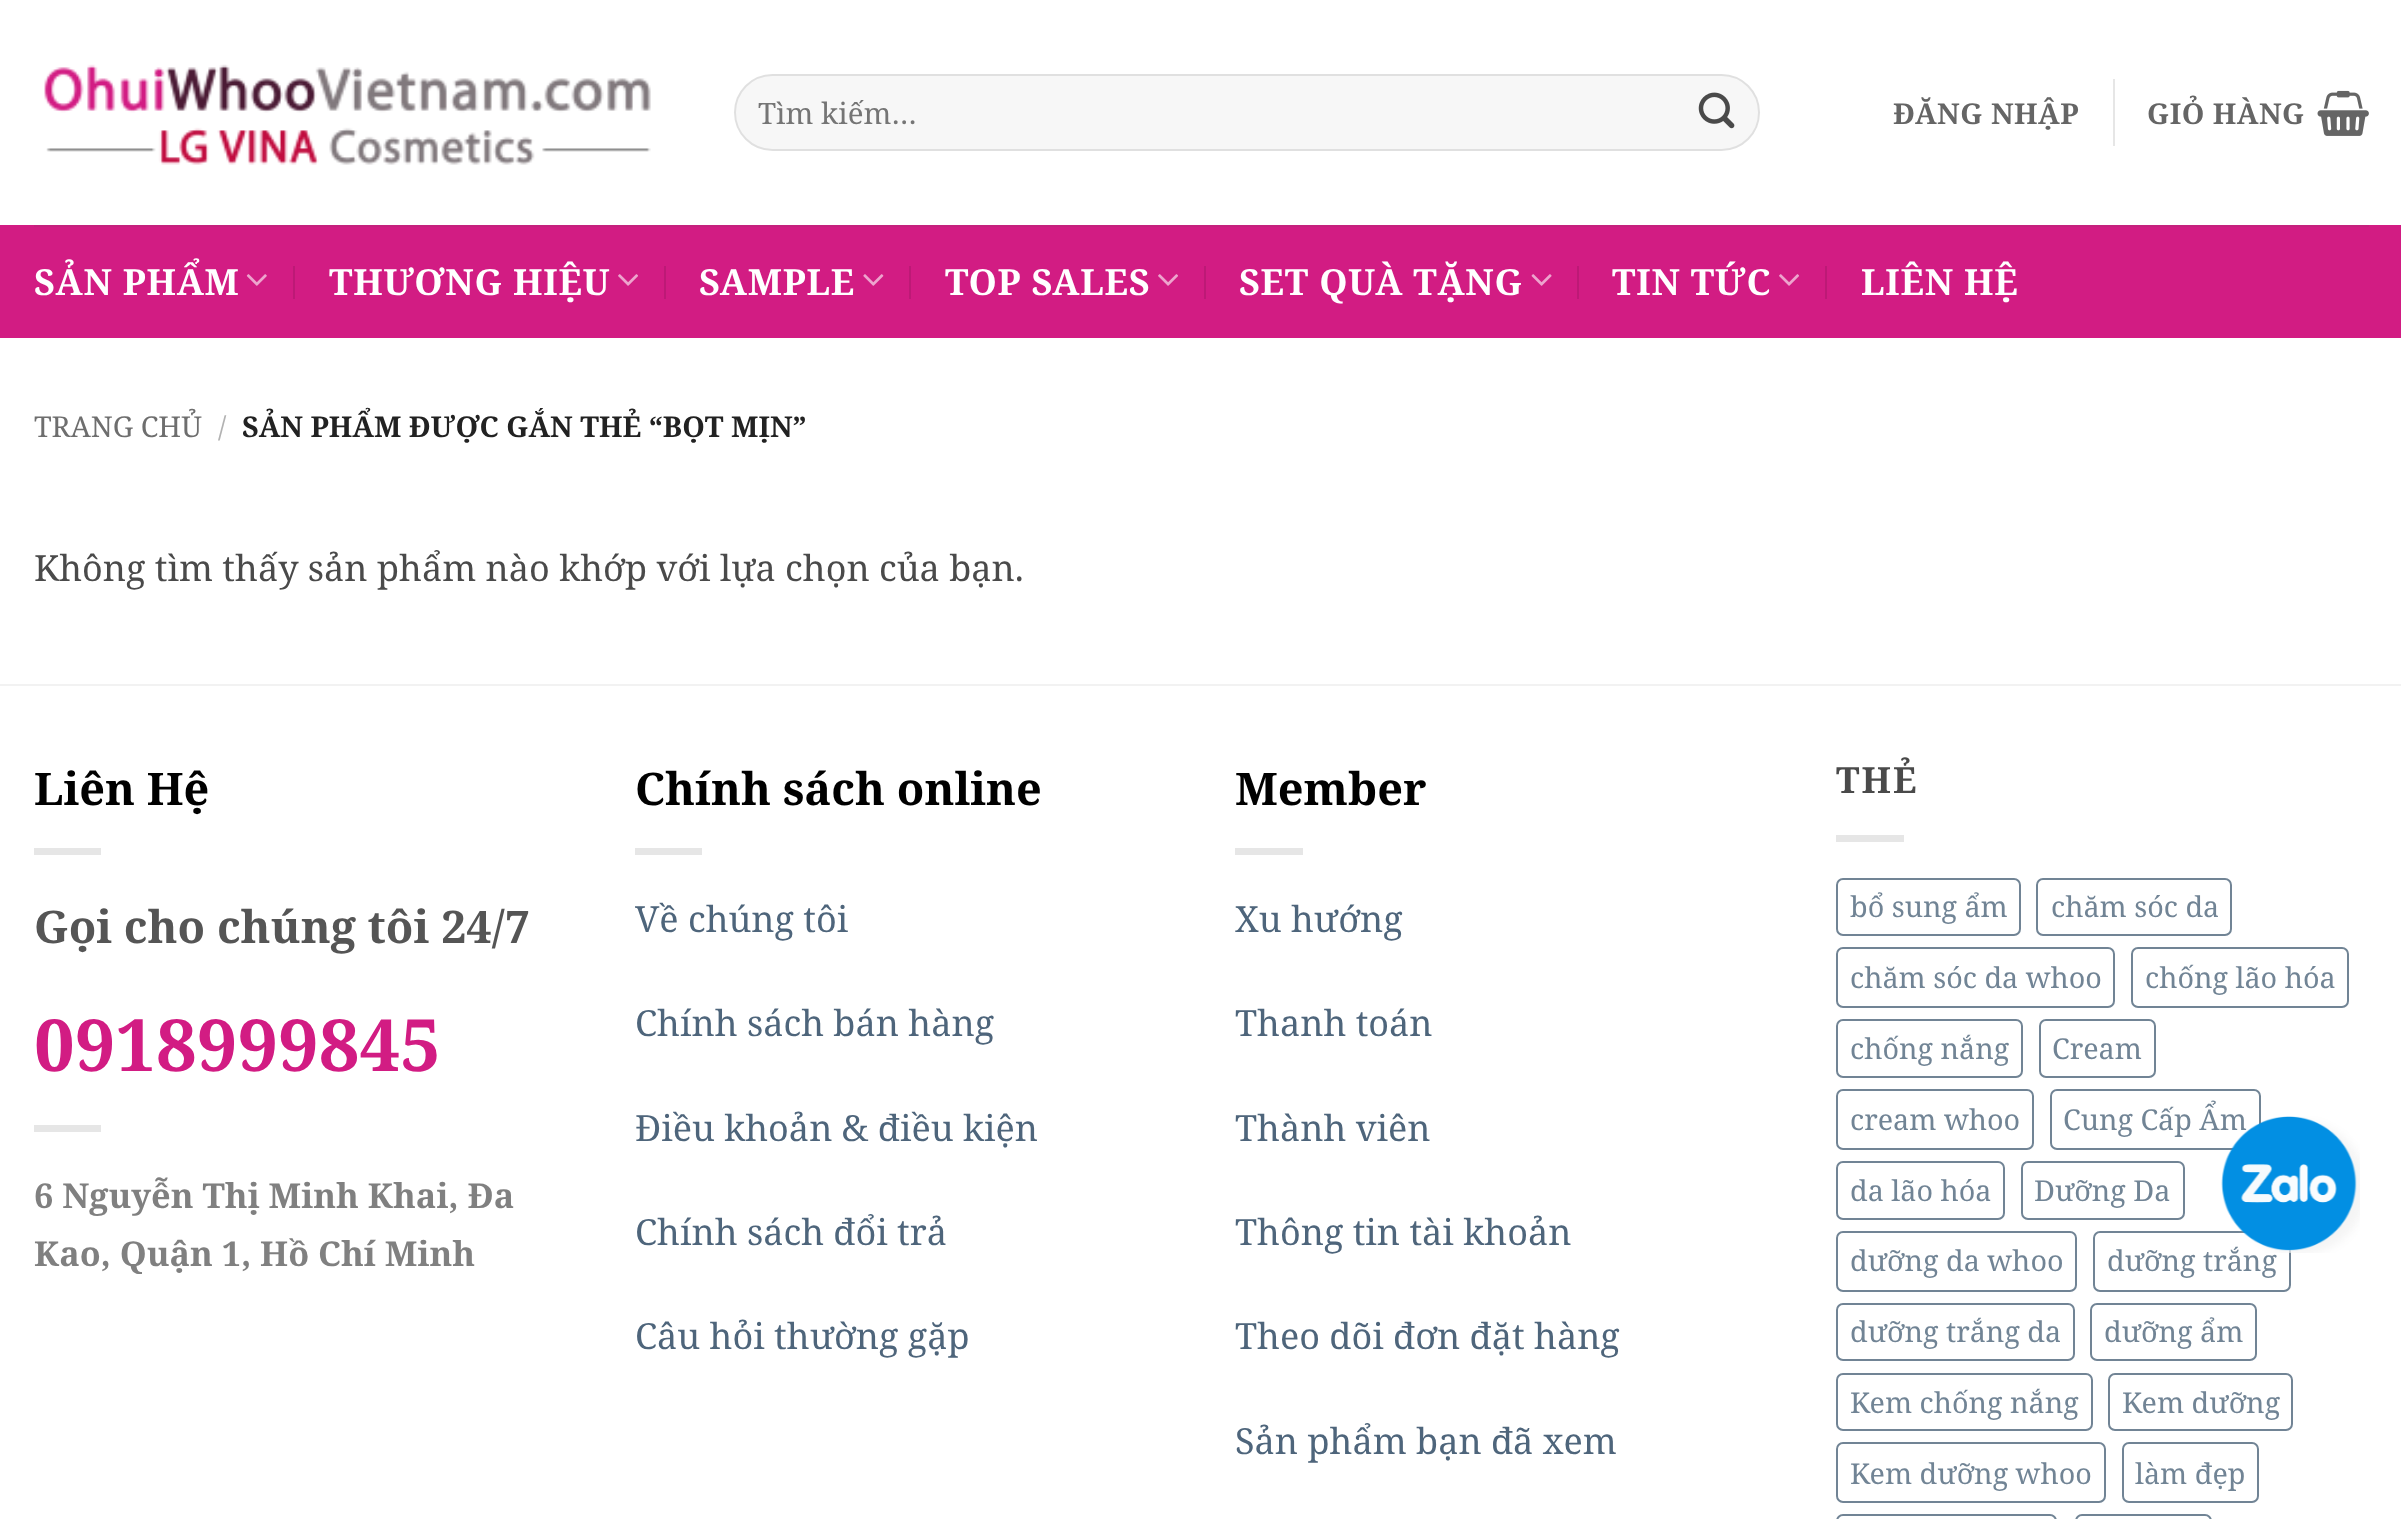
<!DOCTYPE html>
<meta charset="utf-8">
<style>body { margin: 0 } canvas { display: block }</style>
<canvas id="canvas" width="2401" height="1519"></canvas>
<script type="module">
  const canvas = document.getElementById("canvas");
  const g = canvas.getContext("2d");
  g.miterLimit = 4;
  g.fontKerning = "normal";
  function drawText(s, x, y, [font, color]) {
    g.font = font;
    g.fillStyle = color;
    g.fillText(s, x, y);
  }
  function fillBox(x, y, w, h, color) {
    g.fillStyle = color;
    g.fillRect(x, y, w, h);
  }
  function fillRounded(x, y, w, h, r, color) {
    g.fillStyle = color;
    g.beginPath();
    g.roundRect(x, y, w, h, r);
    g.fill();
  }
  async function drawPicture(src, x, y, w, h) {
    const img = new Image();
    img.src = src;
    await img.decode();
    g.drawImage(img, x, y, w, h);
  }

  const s1 = ["29.5px Noto Serif", "#757575"];
  const s2 = ["bold 28.75px Noto Serif", "#656565"];
  const s3 = ["bold 36px Noto Serif", "#FFFFFF"];
  const s4 = ["28.75px Noto Serif", "#6E6E6E"];
  const s5 = ["28.75px Noto Serif", "#B2B2B2"];
  const s6 = ["bold 28.75px Noto Serif", "#222222"];
  const s7 = ["36px Noto Serif", "#4A4A4A"];
  const s8 = ["bold 45px Noto Serif", "#000000"];
  const s9 = ["bold 45px Noto Serif", "#555555"];
  const s10 = ["bold 72px Noto Serif", "#D21C83"];
  const s11 = ["bold 34.25px Noto Serif", "#808080"];
  const s12 = ["36px Noto Serif", "#4E657B"];
  const s13 = ["bold 36px Noto Serif", "#4A4A4A"];
  const s14 = ["28.75px Noto Serif", "#718495"];

  fillBox(0, 0, 2401, 1519, "#FFFFFF");
  await drawPicture("pic1.png", 44, 64, 607, 101);
  fillRounded(734, 74, 1026, 77, 38.5, "#F7F7F7");
  g.beginPath();
  g.roundRect(735, 75, 1024, 75, 37.5);
  g.strokeStyle = "rgba(0, 0, 0, 0.09)";
  g.lineWidth = 2;
  g.stroke();
  drawText("Tìm kiếm…", 758, 124, s1);
  await drawPicture("pic2.png", 1698, 92, 37, 37);
  g.letterSpacing = "0.5px";
  drawText("ĐĂNG NHẬP", 1893, 124, s2);
  fillBox(2113, 79, 2, 67, "#E6E6E6");
  drawText("GIỎ HÀNG", 2147, 124, s2);
  await drawPicture("pic3.png", 2317, 90, 52, 46);
  fillBox(0, 225, 2401, 113, "#D21C83");
  fillBox(34, 225, 2335, 2, "#C4217D");
  g.letterSpacing = "0.75px";
  drawText("SẢN PHẨM", 34, 295, s3);
  await drawPicture("pic4.png", 246, 274, 21, 12);
  fillBox(293, 266, 2, 33, "#BD1976");
  drawText("THƯƠNG HIỆU", 329, 295, s3);
  await drawPicture("pic5.png", 618, 274, 20, 12);
  fillBox(664, 266, 2, 33, "#BD1976");
  drawText("SAMPLE", 699, 295, s3);
  await drawPicture("pic6.png", 863, 274, 21, 12);
  fillBox(909, 266, 2, 33, "#BD1976");
  drawText("TOP SALES", 945, 295, s3);
  await drawPicture("pic5.png", 1158, 274, 20, 12);
  fillBox(1204, 266, 2, 33, "#BD1976");
  drawText("SET QUÀ TẶNG", 1239, 295, s3);
  await drawPicture("pic7.png", 1531, 274, 21, 12);
  fillBox(1577, 266, 2, 33, "#BD1976");
  drawText("TIN TỨC", 1612, 295, s3);
  await drawPicture("pic5.png", 1779, 274, 20, 12);
  fillBox(1825, 266, 2, 33, "#BD1976");
  drawText("LIÊN HỆ", 1861, 295, s3);
  g.letterSpacing = "0px";
  drawText("TRANG CHỦ", 34, 437, s4);
  drawText("/", 218, 437, s5);
  drawText("SẢN PHẨM ĐƯỢC GẮN THẺ “BỌT MỊN”", 242, 437, s6);
  drawText("Không tìm thấy sản phẩm nào khớp với lựa chọn của bạn.", 34, 581, s7);
  fillBox(0, 684, 2401, 2, "#F2F2F2");
  drawText("Liên Hệ", 34, 805, s8);
  fillBox(34, 848, 67, 7, "#E6E6E6");
  drawText("Gọi cho chúng tôi 24/7", 34, 943, s9);
  drawText("0918999845", 34, 1071, s10);
  fillBox(34, 1125, 67, 7, "#E6E6E6");
  drawText("6 Nguyễn Thị Minh Khai, Đa", 34, 1208, s11);
  drawText("Kao, Quận 1, Hồ Chí Minh", 34, 1266, s11);
  drawText("Chính sách online", 635, 805, s8);
  fillBox(635, 848, 67, 7, "#E6E6E6");
  drawText("Về chúng tôi", 635, 932, s12);
  drawText("Chính sách bán hàng", 635, 1036, s12);
  drawText("Điều khoản & điều kiện", 635, 1141, s12);
  drawText("Chính sách đổi trả", 635, 1245, s12);
  drawText("Câu hỏi thường gặp", 635, 1349, s12);
  drawText("Member", 1235, 805, s8);
  fillBox(1235, 848, 68, 7, "#E6E6E6");
  drawText("Xu hướng", 1235, 932, s12);
  drawText("Thanh toán", 1235, 1036, s12);
  drawText("Thành viên", 1235, 1141, s12);
  drawText("Thông tin tài khoản", 1235, 1245, s12);
  drawText("Theo dõi đơn đặt hàng", 1235, 1349, s12);
  drawText("Sản phẩm bạn đã xem", 1235, 1454, s12);
  g.letterSpacing = "2px";
  drawText("THẺ", 1836, 793, s13);
  fillBox(1836, 835, 68, 7, "#E6E6E6");
  g.beginPath();
  g.roundRect(1837, 879, 183, 56, 6);
  g.strokeStyle = "#718495";
  g.stroke();
  g.letterSpacing = "0px";
  drawText("bổ sung ẩm", 1850, 917, s14);
  g.beginPath();
  g.roundRect(2037, 879, 194, 56, 6);
  g.stroke();
  drawText("chăm sóc da", 2051, 917, s14);
  g.beginPath();
  g.roundRect(1837, 948, 277, 59, 6);
  g.stroke();
  drawText("chăm sóc da whoo", 1850, 988, s14);
  g.beginPath();
  g.roundRect(2132, 948, 216, 59, 6);
  g.stroke();
  drawText("chống lão hóa", 2145, 988, s14);
  g.beginPath();
  g.roundRect(1837, 1020, 185, 57, 6);
  g.stroke();
  drawText("chống nắng", 1850, 1059, s14);
  g.beginPath();
  g.roundRect(2040, 1020, 115, 57, 6);
  g.stroke();
  drawText("Cream", 2052, 1059, s14);
  g.beginPath();
  g.roundRect(1837, 1090, 196, 59, 6);
  g.stroke();
  drawText("cream whoo", 1850, 1130, s14);
  g.beginPath();
  g.roundRect(2051, 1090, 209, 59, 6);
  g.stroke();
  drawText("Cung Cấp Ẩm", 2063, 1130, s14);
  g.beginPath();
  g.roundRect(1837, 1162, 167, 57, 6);
  g.stroke();
  drawText("da lão hóa", 1850, 1201, s14);
  g.beginPath();
  g.roundRect(2022, 1162, 162, 57, 6);
  g.stroke();
  drawText("Dưỡng Da", 2034, 1201, s14);
  g.beginPath();
  g.roundRect(1837, 1232, 239, 59, 6);
  g.stroke();
  drawText("dưỡng da whoo", 1850, 1271, s14);
  g.beginPath();
  g.roundRect(2094, 1232, 196, 59, 6);
  g.stroke();
  drawText("dưỡng trắng", 2107, 1271, s14);
  g.beginPath();
  g.roundRect(1837, 1304, 237, 56, 6);
  g.stroke();
  drawText("dưỡng trắng da", 1850, 1342, s14);
  g.beginPath();
  g.roundRect(2091, 1304, 165, 56, 6);
  g.stroke();
  drawText("dưỡng ẩm", 2104, 1342, s14);
  g.beginPath();
  g.roundRect(1837, 1374, 255, 56, 6);
  g.stroke();
  drawText("Kem chống nắng", 1850, 1413, s14);
  g.beginPath();
  g.roundRect(2109, 1374, 183, 56, 6);
  g.stroke();
  drawText("Kem dưỡng", 2122, 1413, s14);
  g.beginPath();
  g.roundRect(1837, 1443, 268, 59, 6);
  g.stroke();
  drawText("Kem dưỡng whoo", 1850, 1484, s14);
  g.beginPath();
  g.roundRect(2123, 1443, 135, 59, 6);
  g.stroke();
  drawText("làm đẹp", 2135, 1484, s14);
  g.beginPath();
  g.roundRect(1837, 1515, 219, 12, 6);
  g.stroke();
  g.beginPath();
  g.roundRect(2076, 1515, 135, 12, 6);
  g.stroke();
  await drawPicture("pic8.png", 2221, 1116, 139, 137);
</script>
